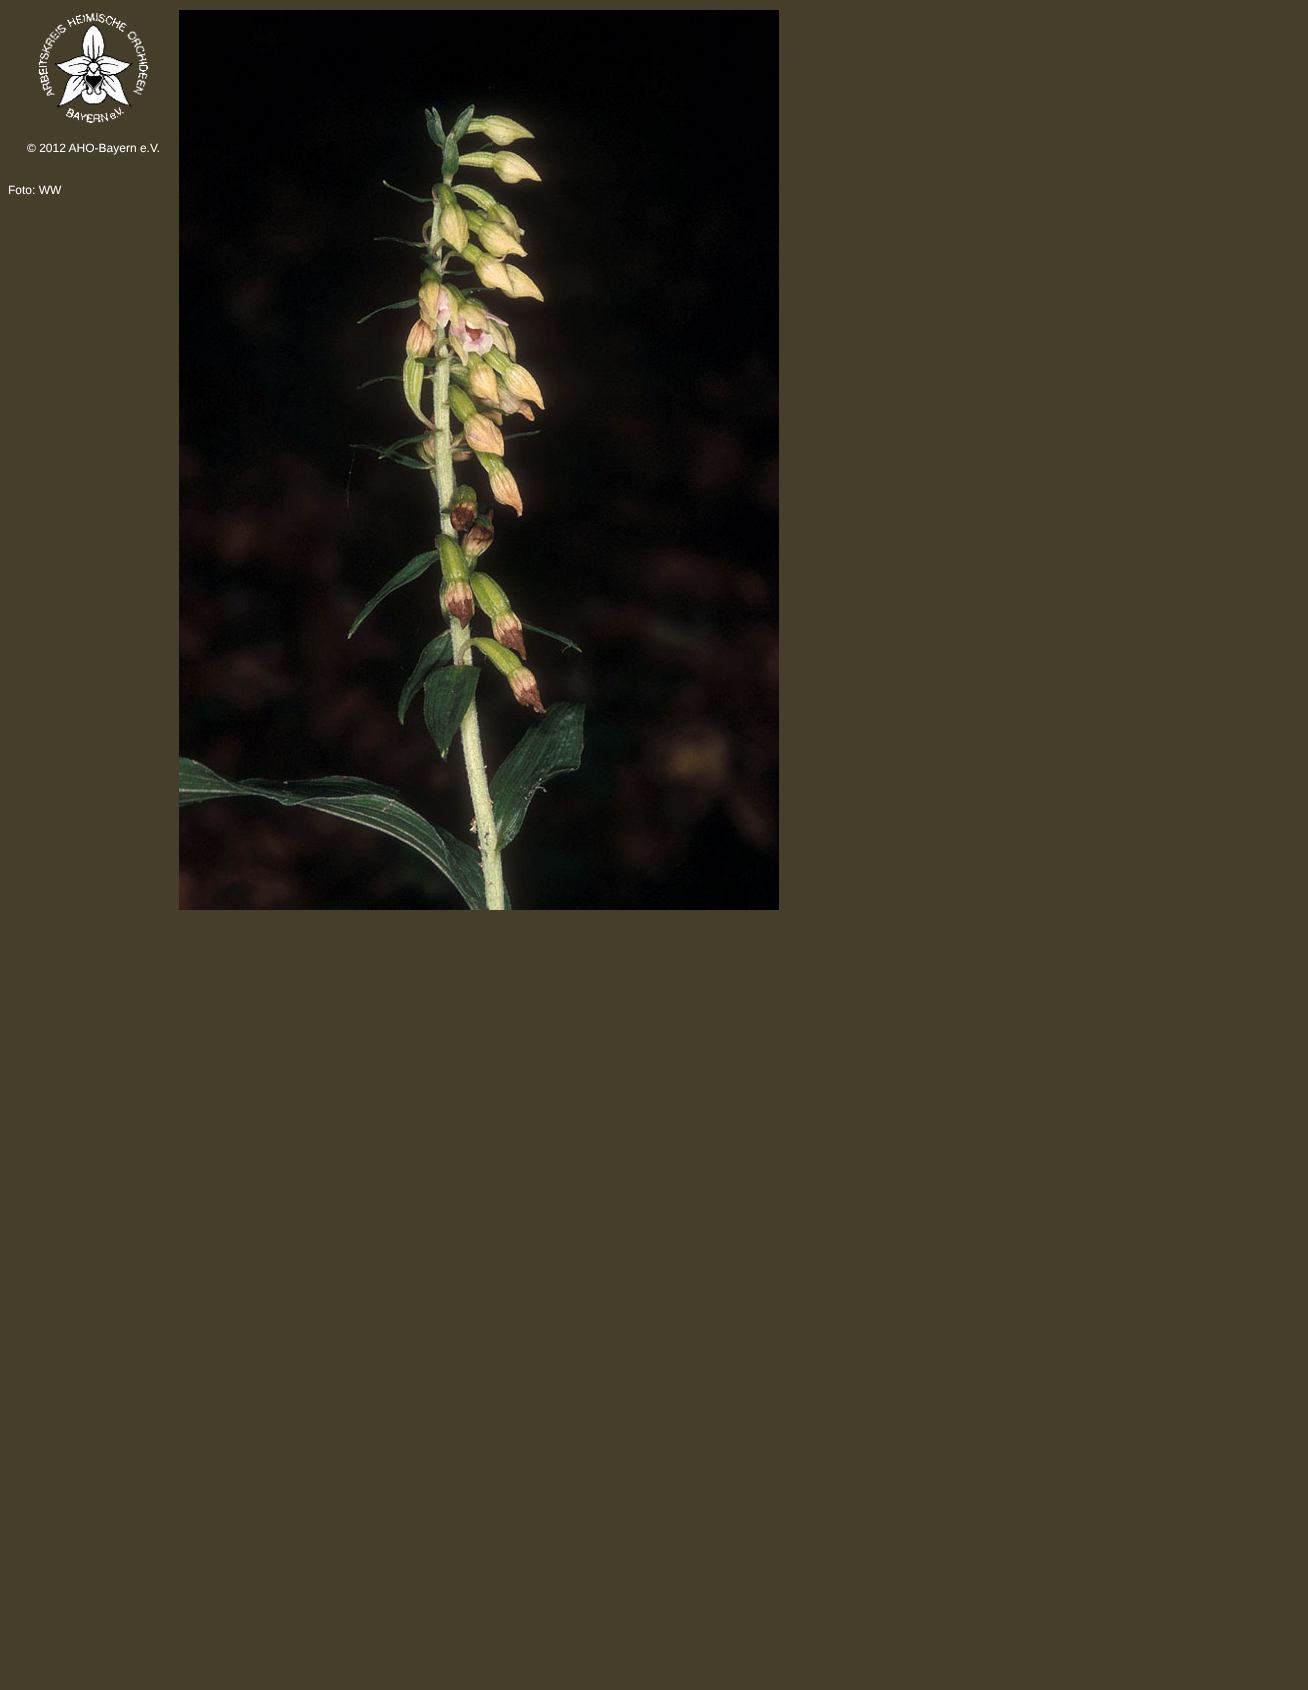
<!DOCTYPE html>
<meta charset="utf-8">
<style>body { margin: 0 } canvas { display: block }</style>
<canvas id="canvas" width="1308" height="1690"></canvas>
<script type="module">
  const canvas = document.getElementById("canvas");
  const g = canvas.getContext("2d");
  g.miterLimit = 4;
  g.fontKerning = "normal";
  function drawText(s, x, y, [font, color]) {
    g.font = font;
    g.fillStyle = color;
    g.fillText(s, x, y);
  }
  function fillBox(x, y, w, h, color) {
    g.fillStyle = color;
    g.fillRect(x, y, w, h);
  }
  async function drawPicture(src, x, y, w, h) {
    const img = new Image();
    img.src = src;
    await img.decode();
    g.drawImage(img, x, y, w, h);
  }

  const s1 = ["12px Liberation Sans", "#FFFFFF"];

  fillBox(0, 0, 1308, 1690, "#453E2B");
  await drawPicture("pic1.png", 38, 13, 111, 111);
  drawText("© 2012 AHO-Bayern e.V.", 27, 152, s1);
  drawText("Foto: WW", 8, 194, s1);
  await drawPicture("pic2.png", 179, 10, 600, 900);
</script>
